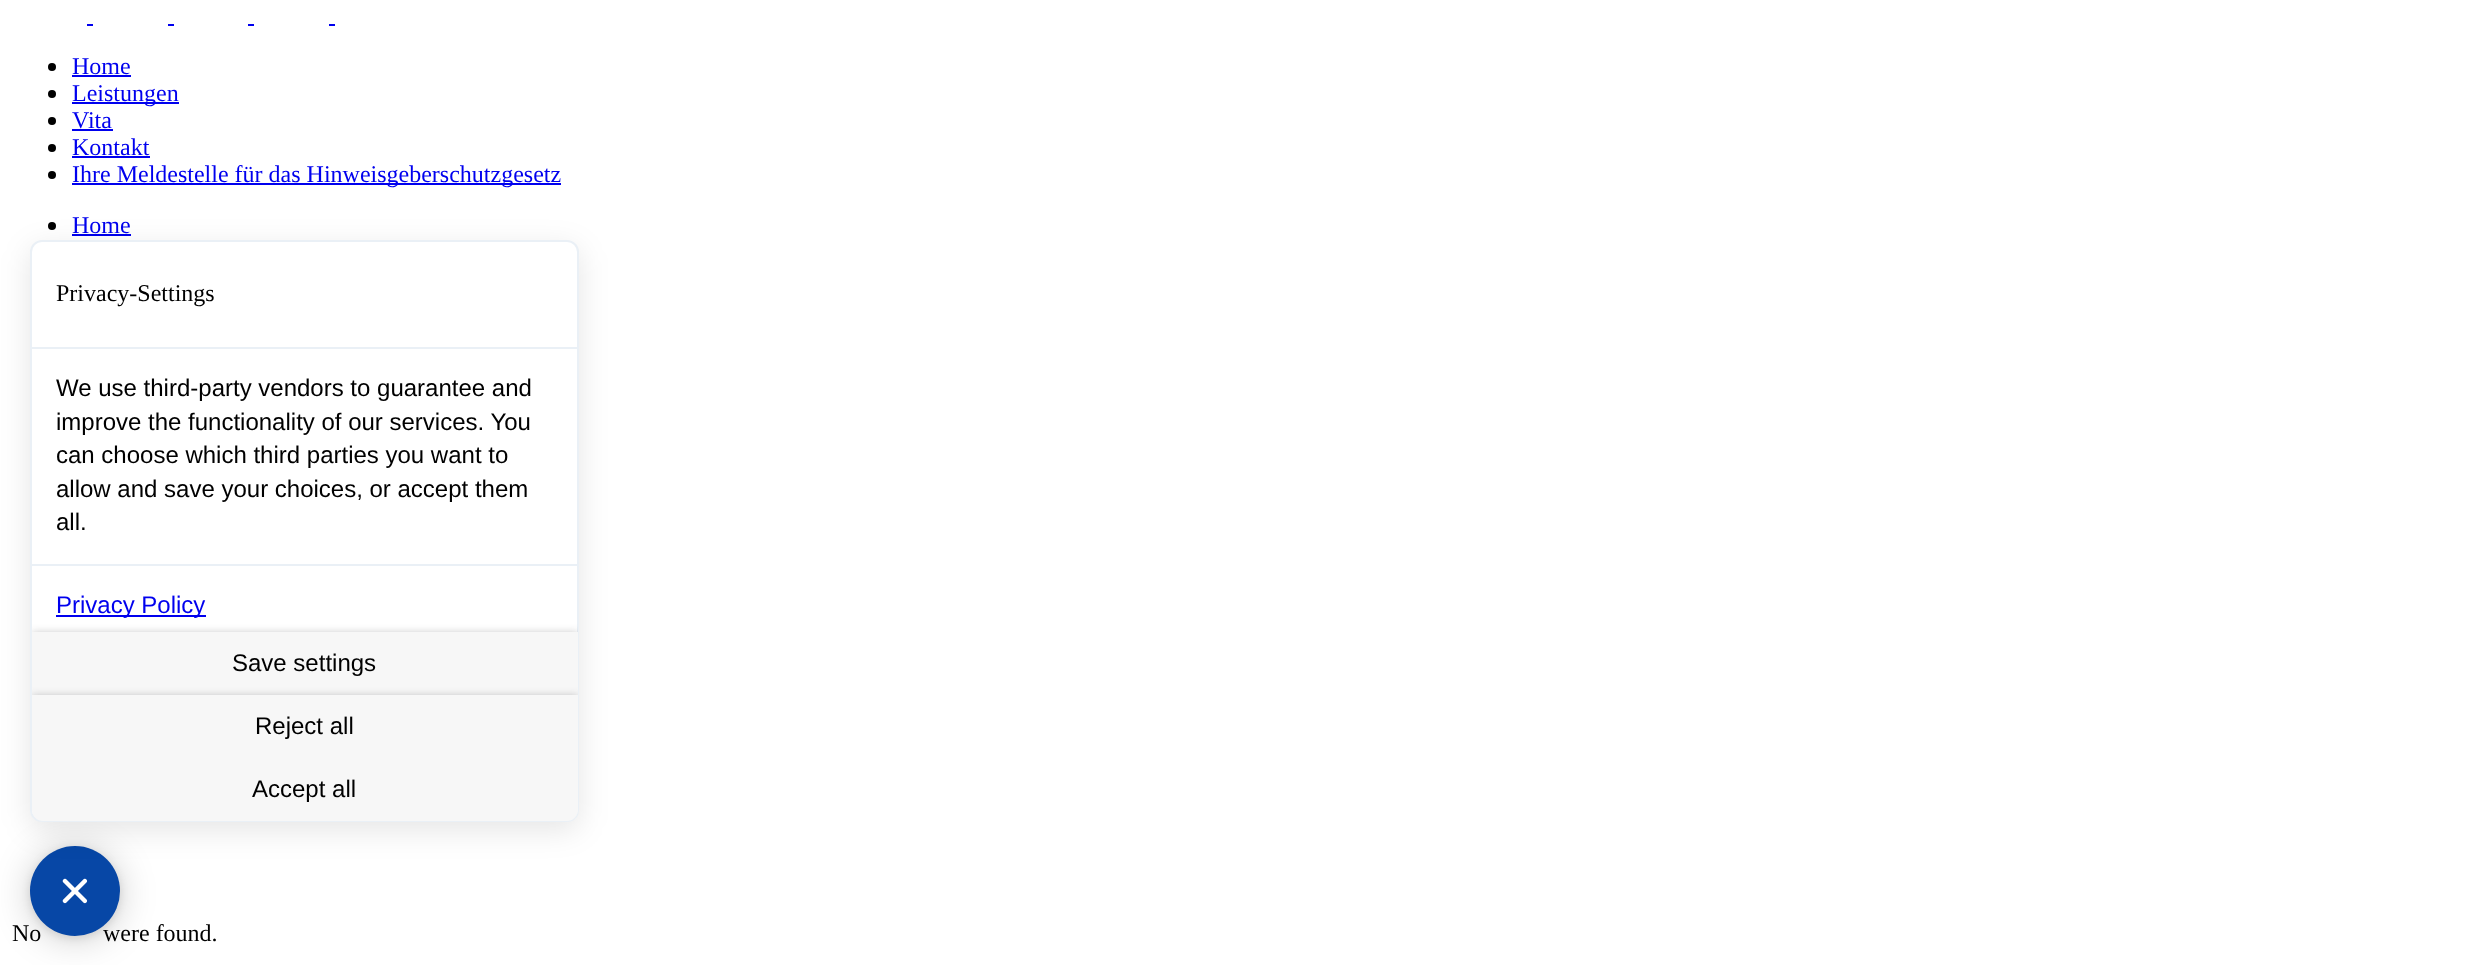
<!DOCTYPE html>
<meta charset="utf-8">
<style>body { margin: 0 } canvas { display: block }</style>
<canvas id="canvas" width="2470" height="965"></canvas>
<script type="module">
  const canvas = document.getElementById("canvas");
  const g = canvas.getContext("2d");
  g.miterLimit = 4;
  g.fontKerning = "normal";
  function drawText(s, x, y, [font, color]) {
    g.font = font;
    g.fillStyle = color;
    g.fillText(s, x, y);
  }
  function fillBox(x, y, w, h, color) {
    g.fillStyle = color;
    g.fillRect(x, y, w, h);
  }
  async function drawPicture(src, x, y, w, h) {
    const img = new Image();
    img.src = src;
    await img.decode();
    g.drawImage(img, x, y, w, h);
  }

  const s1 = ["24px Liberation Serif", "#0000EE"];
  const s2 = ["24px Liberation Serif", "#000000"];
  const s3 = ["24px Liberation Sans", "#000000"];
  const s4 = ["24px Liberation Sans", "#0000EE"];

  fillBox(0, 0, 2470, 965, "#FFFFFF");
  fillBox(87, 24, 6, 2, "#0000EE");
  fillBox(168, 24, 6, 2, "#0000EE");
  fillBox(248, 24, 6, 2, "#0000EE");
  fillBox(329, 24, 6, 2, "#0000EE");
  g.fillStyle = "#000000";
  g.beginPath();
  g.arc(52, 67, 4, 0, Math.PI * 2);
  g.fill();
  drawText("Home", 72, 74, s1);
  fillBox(72, 75, 59, 2, "#0000EE");
  g.fillStyle = "#000000";
  g.beginPath();
  g.arc(52, 94, 4, 0, Math.PI * 2);
  g.fill();
  fillBox(72, 102, 107, 2, "#0000EE");
  drawText("Leistungen", 72, 101, s1);
  g.fillStyle = "#000000";
  g.beginPath();
  g.arc(52, 121, 4, 0, Math.PI * 2);
  g.fill();
  drawText("Vita", 72, 128, s1);
  fillBox(72, 129, 41, 2, "#0000EE");
  g.fillStyle = "#000000";
  g.beginPath();
  g.arc(52, 148, 4, 0, Math.PI * 2);
  g.fill();
  drawText("Kontakt", 72, 155, s1);
  fillBox(72, 156, 78, 2, "#0000EE");
  g.fillStyle = "#000000";
  g.beginPath();
  g.arc(52, 175, 4, 0, Math.PI * 2);
  g.fill();
  fillBox(72, 183, 489, 2, "#0000EE");
  drawText("Ihre Meldestelle für das Hinweisgeberschutzgesetz", 72, 182, s1);
  g.fillStyle = "#000000";
  g.beginPath();
  g.arc(52, 226, 4, 0, Math.PI * 2);
  g.fill();
  drawText("Home", 72, 233, s1);
  fillBox(72, 234, 59, 2, "#0000EE");
  g.fillStyle = "rgba(0, 0, 0, 0.2)";
  g.filter = "blur(18px)";
  g.beginPath();
  g.roundRect(30, 849, 90, 90, 45);
  g.fill();
  g.filter = "none";
  g.fillStyle = "rgba(0, 0, 0, 0.1)";
  g.filter = "blur(4.5px)";
  g.beginPath();
  g.roundRect(30, 848, 90, 90, 45);
  g.fill();
  g.filter = "none";
  drawText("No", 12, 941, s2);
  drawText("were found.", 103, 941, s2);
  g.fillStyle = "#0747A6";
  g.beginPath();
  g.arc(75, 891, 45, 0, Math.PI * 2);
  g.fill();
  g.fillStyle = "rgba(0, 0, 0, 0.1)";
  g.filter = "blur(15px)";
  g.beginPath();
  g.roundRect(30, 248, 549, 582, 12);
  g.fill();
  g.filter = "none";
  g.fillStyle = "#FFFFFF";
  g.beginPath();
  g.roundRect(31, 241, 547, 580, 11);
  g.fill();
  g.strokeStyle = "#EAF0F6";
  g.lineWidth = 2;
  g.stroke();
  drawText("Privacy-Settings", 56, 301, s2);
  fillBox(32, 347, 546, 2, "#EAF0F6");
  drawText("We use third-party vendors to guarantee and", 56, 396, s3);
  drawText("improve the functionality of our services. You", 56, 430, s3);
  drawText("can choose which third parties you want to", 56, 463, s3);
  drawText("allow and save your choices, or accept them", 56, 497, s3);
  drawText("all.", 56, 530, s3);
  fillBox(32, 564, 546, 2, "#EAF0F6");
  fillBox(56, 615, 150, 2, "#0000EE");
  drawText("Privacy Policy", 56, 613, s4);
  g.save();
  g.beginPath();
  g.roundRect(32, 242, 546, 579, 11);
  g.clip();
  g.fillStyle = "rgba(32, 33, 36, 0.28)";
  g.filter = "blur(4.5px)";
  g.beginPath();
  g.rect(32, 633, 546, 63);
  g.fill();
  g.filter = "none";
  g.restore();
  fillBox(32, 632, 546, 63, "#F7F7F7");
  drawText("Save settings", 232, 671, s3);
  g.save();
  g.beginPath();
  g.roundRect(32, 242, 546, 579, 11);
  g.clip();
  g.fillStyle = "rgba(32, 33, 36, 0.28)";
  g.filter = "blur(4.5px)";
  g.beginPath();
  g.rect(32, 696, 546, 63);
  g.fill();
  g.filter = "none";
  g.restore();
  fillBox(32, 695, 546, 63, "#F7F7F7");
  drawText("Reject all", 255, 734, s3);
  g.fillStyle = "#F7F7F7";
  g.beginPath();
  g.roundRect(32, 758, 546, 63, [0, 0, 11, 11]);
  g.fill();
  drawText("Accept all", 252, 797, s3);
  await drawPicture("pic1.png", 62, 878, 26, 26);
</script>
